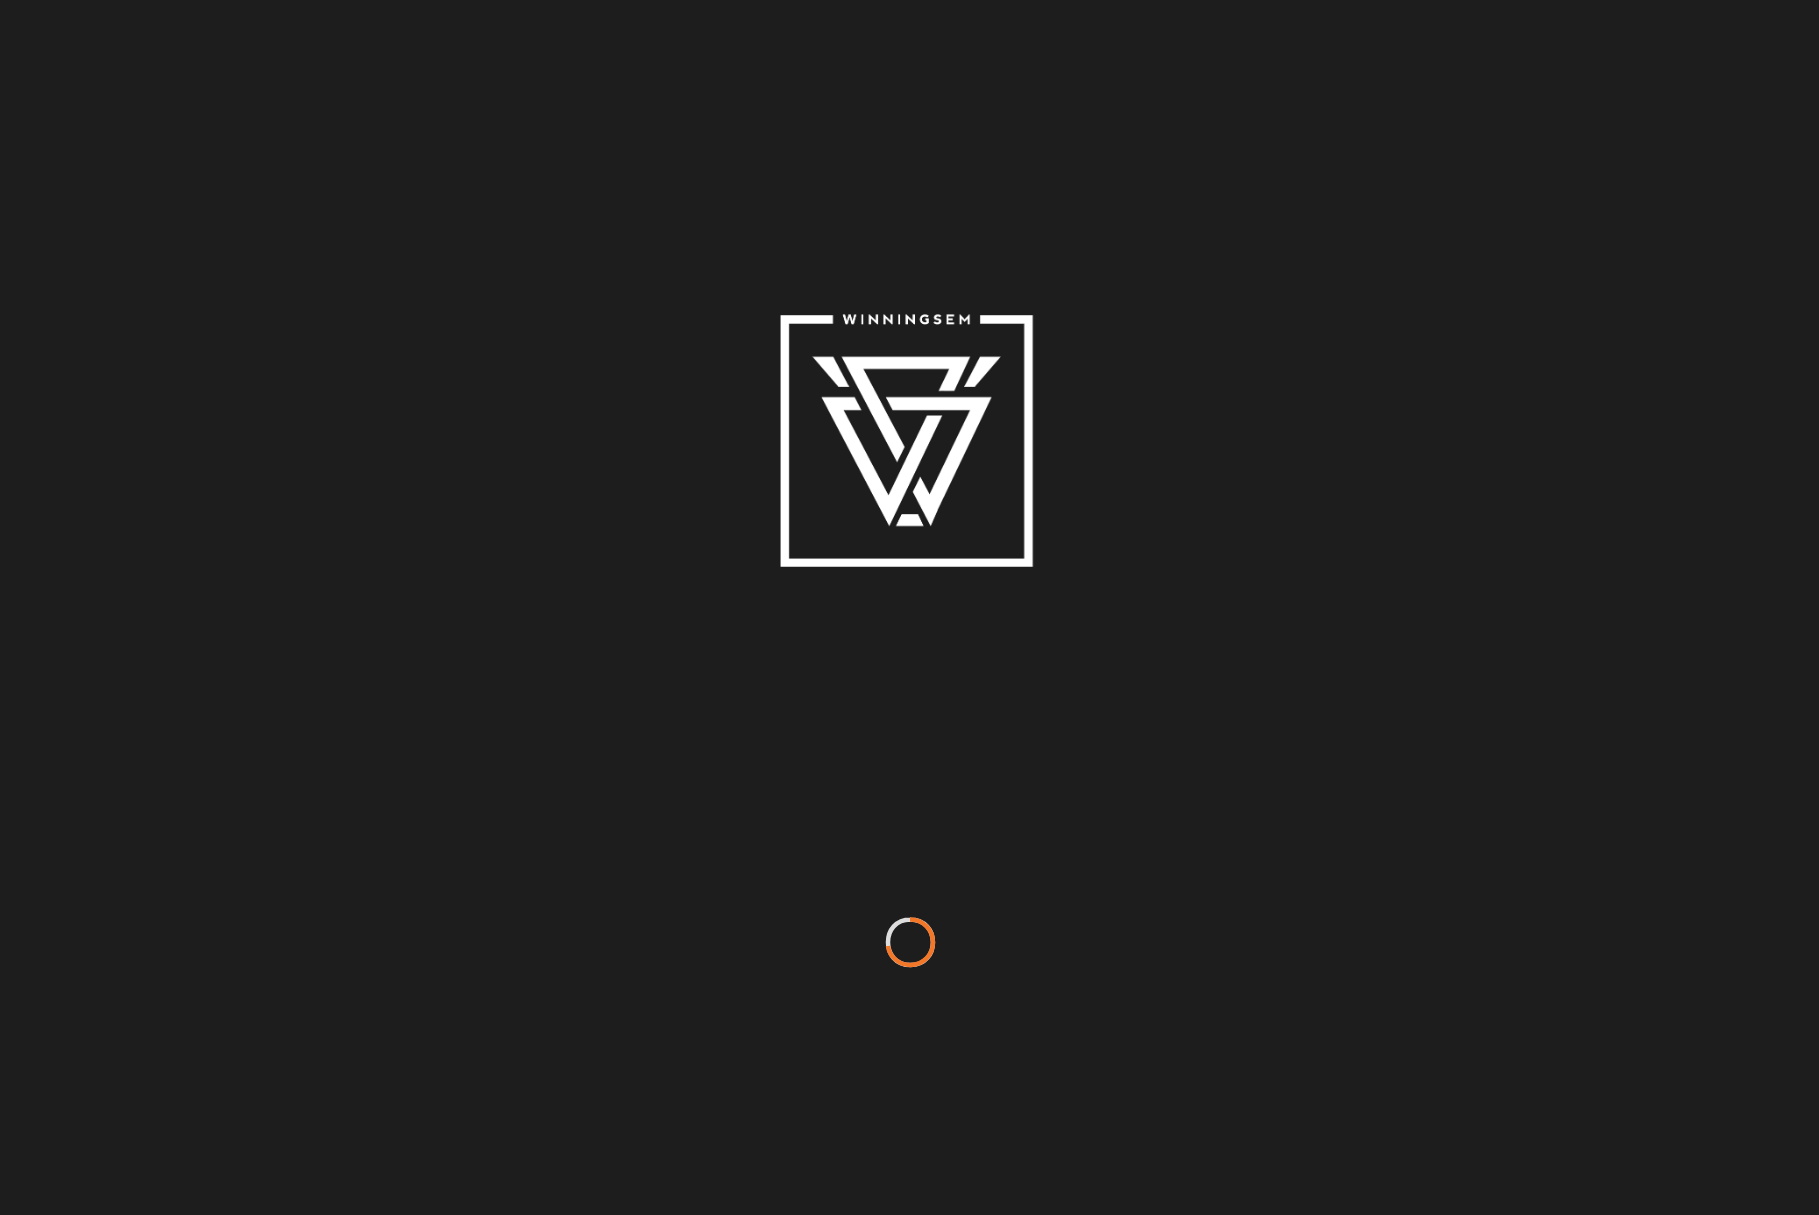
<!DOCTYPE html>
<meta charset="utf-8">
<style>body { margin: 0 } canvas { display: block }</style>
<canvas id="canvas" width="1819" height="1215"></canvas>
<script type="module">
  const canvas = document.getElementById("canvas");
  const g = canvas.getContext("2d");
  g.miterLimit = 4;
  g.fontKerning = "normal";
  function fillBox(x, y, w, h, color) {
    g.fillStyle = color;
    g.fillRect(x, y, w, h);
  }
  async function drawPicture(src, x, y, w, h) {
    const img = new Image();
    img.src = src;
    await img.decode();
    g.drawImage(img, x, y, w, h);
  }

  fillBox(0, 0, 1819, 1215, "#1D1D1D");
  await drawPicture("pic1.png", 780, 314, 254, 253);
  g.beginPath();
  g.moveTo(910, 919.5);
  g.bezierCurveTo(940.5, 919.5, 940.5, 965, 910.5, 965);
  g.bezierCurveTo(880.5, 965, 880.5, 919.5, 910.5, 919.5);
  g.closePath();
  g.strokeStyle = "#DDDDDD";
  g.lineWidth = 4.5;
  g.stroke();
  g.beginPath();
  g.moveTo(910, 919.5);
  g.bezierCurveTo(923, 919.5, 933, 929.5, 933, 942.5);
  g.bezierCurveTo(933, 955, 923, 965, 910.5, 965);
  g.bezierCurveTo(899, 965, 889.5, 957, 888, 946);
  g.strokeStyle = "#F37729";
  g.stroke();
</script>
